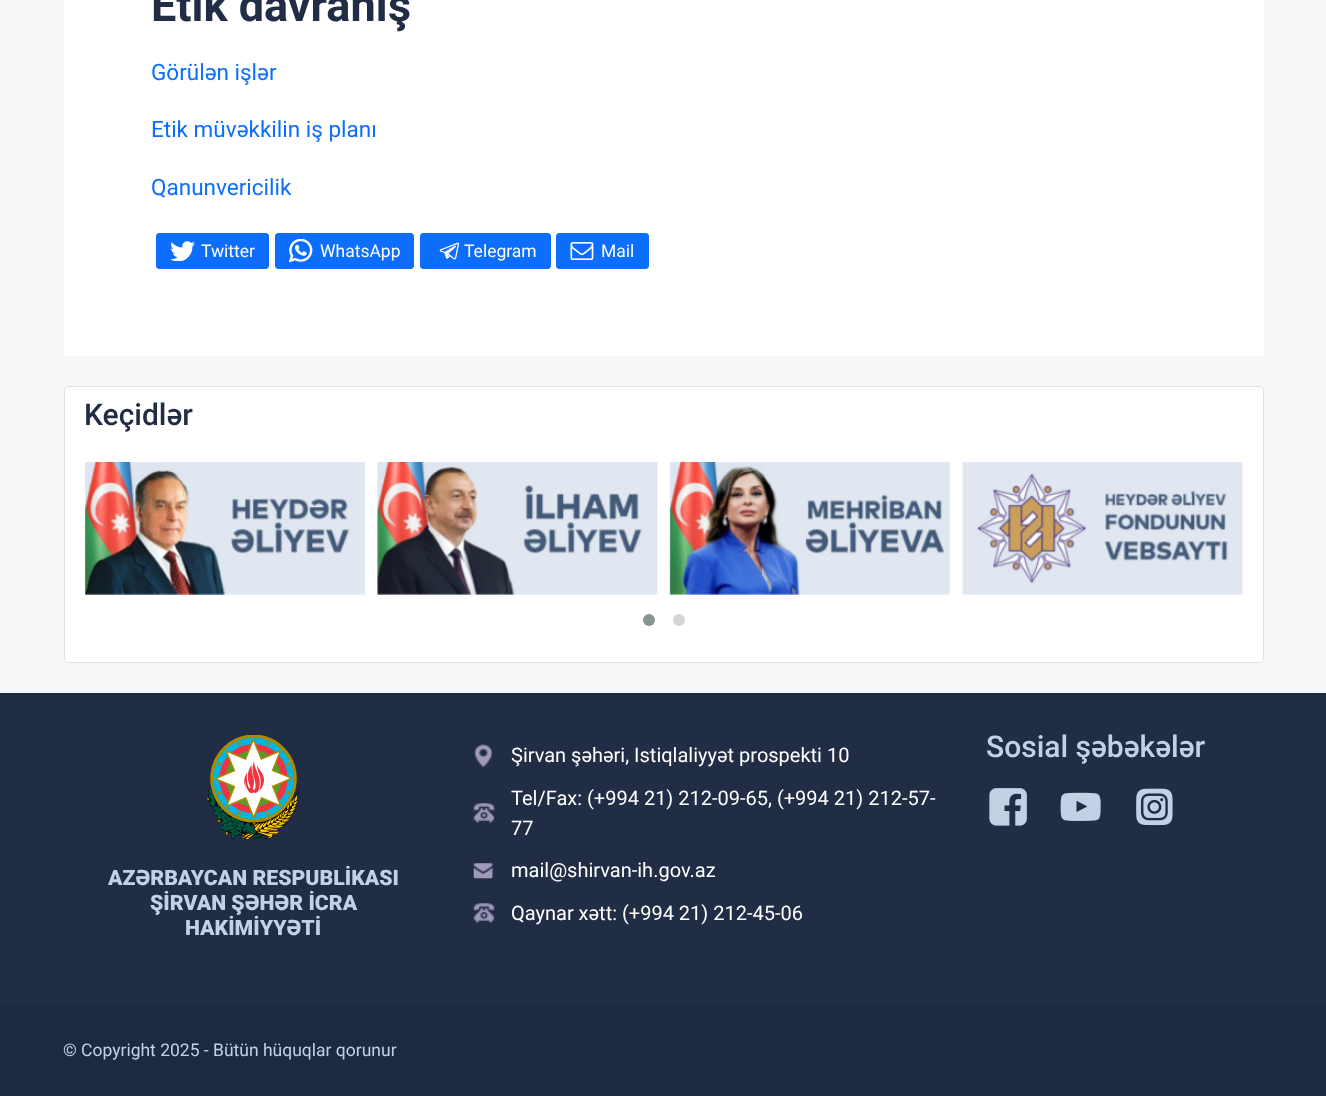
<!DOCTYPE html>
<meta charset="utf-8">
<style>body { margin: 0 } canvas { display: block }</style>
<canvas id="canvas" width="1326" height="1096"></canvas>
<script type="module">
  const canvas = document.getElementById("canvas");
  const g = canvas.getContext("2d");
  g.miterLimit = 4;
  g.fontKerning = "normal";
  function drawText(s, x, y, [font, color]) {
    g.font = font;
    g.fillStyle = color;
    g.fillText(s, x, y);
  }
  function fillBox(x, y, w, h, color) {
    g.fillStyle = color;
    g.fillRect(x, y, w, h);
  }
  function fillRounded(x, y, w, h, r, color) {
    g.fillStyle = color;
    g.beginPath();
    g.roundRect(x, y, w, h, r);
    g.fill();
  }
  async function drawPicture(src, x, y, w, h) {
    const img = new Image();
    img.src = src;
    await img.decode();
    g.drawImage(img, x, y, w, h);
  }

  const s1 = ["bold 45px Roboto", "#212D45"];
  const s2 = ["22.5px Roboto", "#0D6EFD"];
  const s3 = ["17.5px Roboto", "#FFFFFF"];
  const s4 = ["500 30px Roboto", "#212D45"];
  const s5 = ["900 21.25px Roboto", "#C4D1E4"];
  const s6 = ["20px Roboto", "#FFFFFF"];
  const s7 = ["500 30px Roboto", "#C4D1E4"];
  const s8 = ["17.5px Roboto", "#C4D1E4"];

  fillBox(0, 0, 1326, 1096, "#F7F8F9");
  fillBox(64, 0, 1200, 356, "#FFFFFF");
  drawText("Etik davranış", 151, 21, s1);
  drawText("Görülən işlər", 151, 80, s2);
  drawText("Etik müvəkkilin iş planı", 151, 137, s2);
  drawText("Qanunvericilik", 151, 195, s2);
  fillRounded(156, 233, 113, 36, 4, "#0D6EFD");
  await drawPicture("pic1.png", 170, 241, 25, 20);
  g.beginPath();
  g.roundRect(156.5, 233.5, 112, 35, 3.5);
  g.strokeStyle = "#0D6EFD";
  g.stroke();
  drawText("Twitter", 201, 257, s3);
  fillRounded(275, 233, 139, 36, 4, "#0D6EFD");
  await drawPicture("pic2.png", 289, 239, 24, 24);
  g.beginPath();
  g.roundRect(275.5, 233.5, 138, 35, 3.5);
  g.stroke();
  drawText("WhatsApp", 320, 257, s3);
  fillRounded(420, 233, 131, 36, 4, "#0D6EFD");
  await drawPicture("pic3.png", 439, 242, 21, 18);
  g.beginPath();
  g.roundRect(420.5, 233.5, 130, 35, 3.5);
  g.stroke();
  drawText("Telegram", 464, 257, s3);
  fillRounded(556, 233, 93, 36, 4, "#0D6EFD");
  await drawPicture("pic4.png", 570, 242, 24, 18);
  g.beginPath();
  g.roundRect(556.5, 233.5, 92, 35, 3.5);
  g.stroke();
  drawText("Mail", 601, 257, s3);
  fillRounded(64, 386, 1200, 277, 5, "#FFFFFF");
  g.beginPath();
  g.roundRect(64.5, 386.5, 1199, 276, 4.5);
  g.strokeStyle = "rgba(0, 0, 0, 0.12)";
  g.stroke();
  drawText("Keçidlər", 84, 425, s4);
  await drawPicture("pic5.png", 85, 462, 280, 133);
  await drawPicture("pic6.png", 377, 462, 281, 133);
  await drawPicture("pic7.png", 669, 462, 281, 133);
  await drawPicture("pic8.png", 962, 462, 281, 133);
  g.fillStyle = "#869791";
  g.beginPath();
  g.arc(649, 620, 6, 0, Math.PI * 2);
  g.fill();
  g.fillStyle = "#D6D6D6";
  g.beginPath();
  g.arc(679, 620, 6, 0, Math.PI * 2);
  g.fill();
  fillBox(0, 693, 1326, 311, "#212D45");
  await drawPicture("pic9.png", 206, 735, 94, 105);
  drawText("AZƏRBAYCAN RESPUBLİKASI", 108, 885, s5);
  drawText("ŞİRVAN ŞƏHƏR İCRA", 150, 910, s5);
  drawText("HAKİMİYYƏTİ", 185, 935, s5);
  await drawPicture("pic10.png", 474, 744, 19, 23);
  drawText("Şirvan şəhəri, Istiqlaliyyət prospekti 10", 511, 762, s6);
  await drawPicture("pic11.png", 473, 803, 22, 21);
  drawText("Tel/Fax: (+994 21) 212-09-65, (+994 21) 212-57-", 511, 805, s6);
  drawText("77", 511, 835, s6);
  await drawPicture("pic12.png", 473, 863, 20, 16);
  drawText("mail@shirvan-ih.gov.az", 511, 877, s6);
  await drawPicture("pic11.png", 473, 903, 22, 21);
  drawText("Qaynar xətt: (+994 21) 212-45-06", 511, 920, s6);
  drawText("Sosial şəbəkələr", 986, 757, s7);
  await drawPicture("pic13.png", 989, 788, 38, 38);
  await drawPicture("pic14.png", 1060, 792, 41, 29);
  await drawPicture("pic15.png", 1136, 788, 37, 38);
  fillBox(0, 1004, 1326, 92, "#1C2941");
  drawText("© Copyright 2025 - Bütün hüquqlar qorunur", 63, 1056, s8);
</script>
